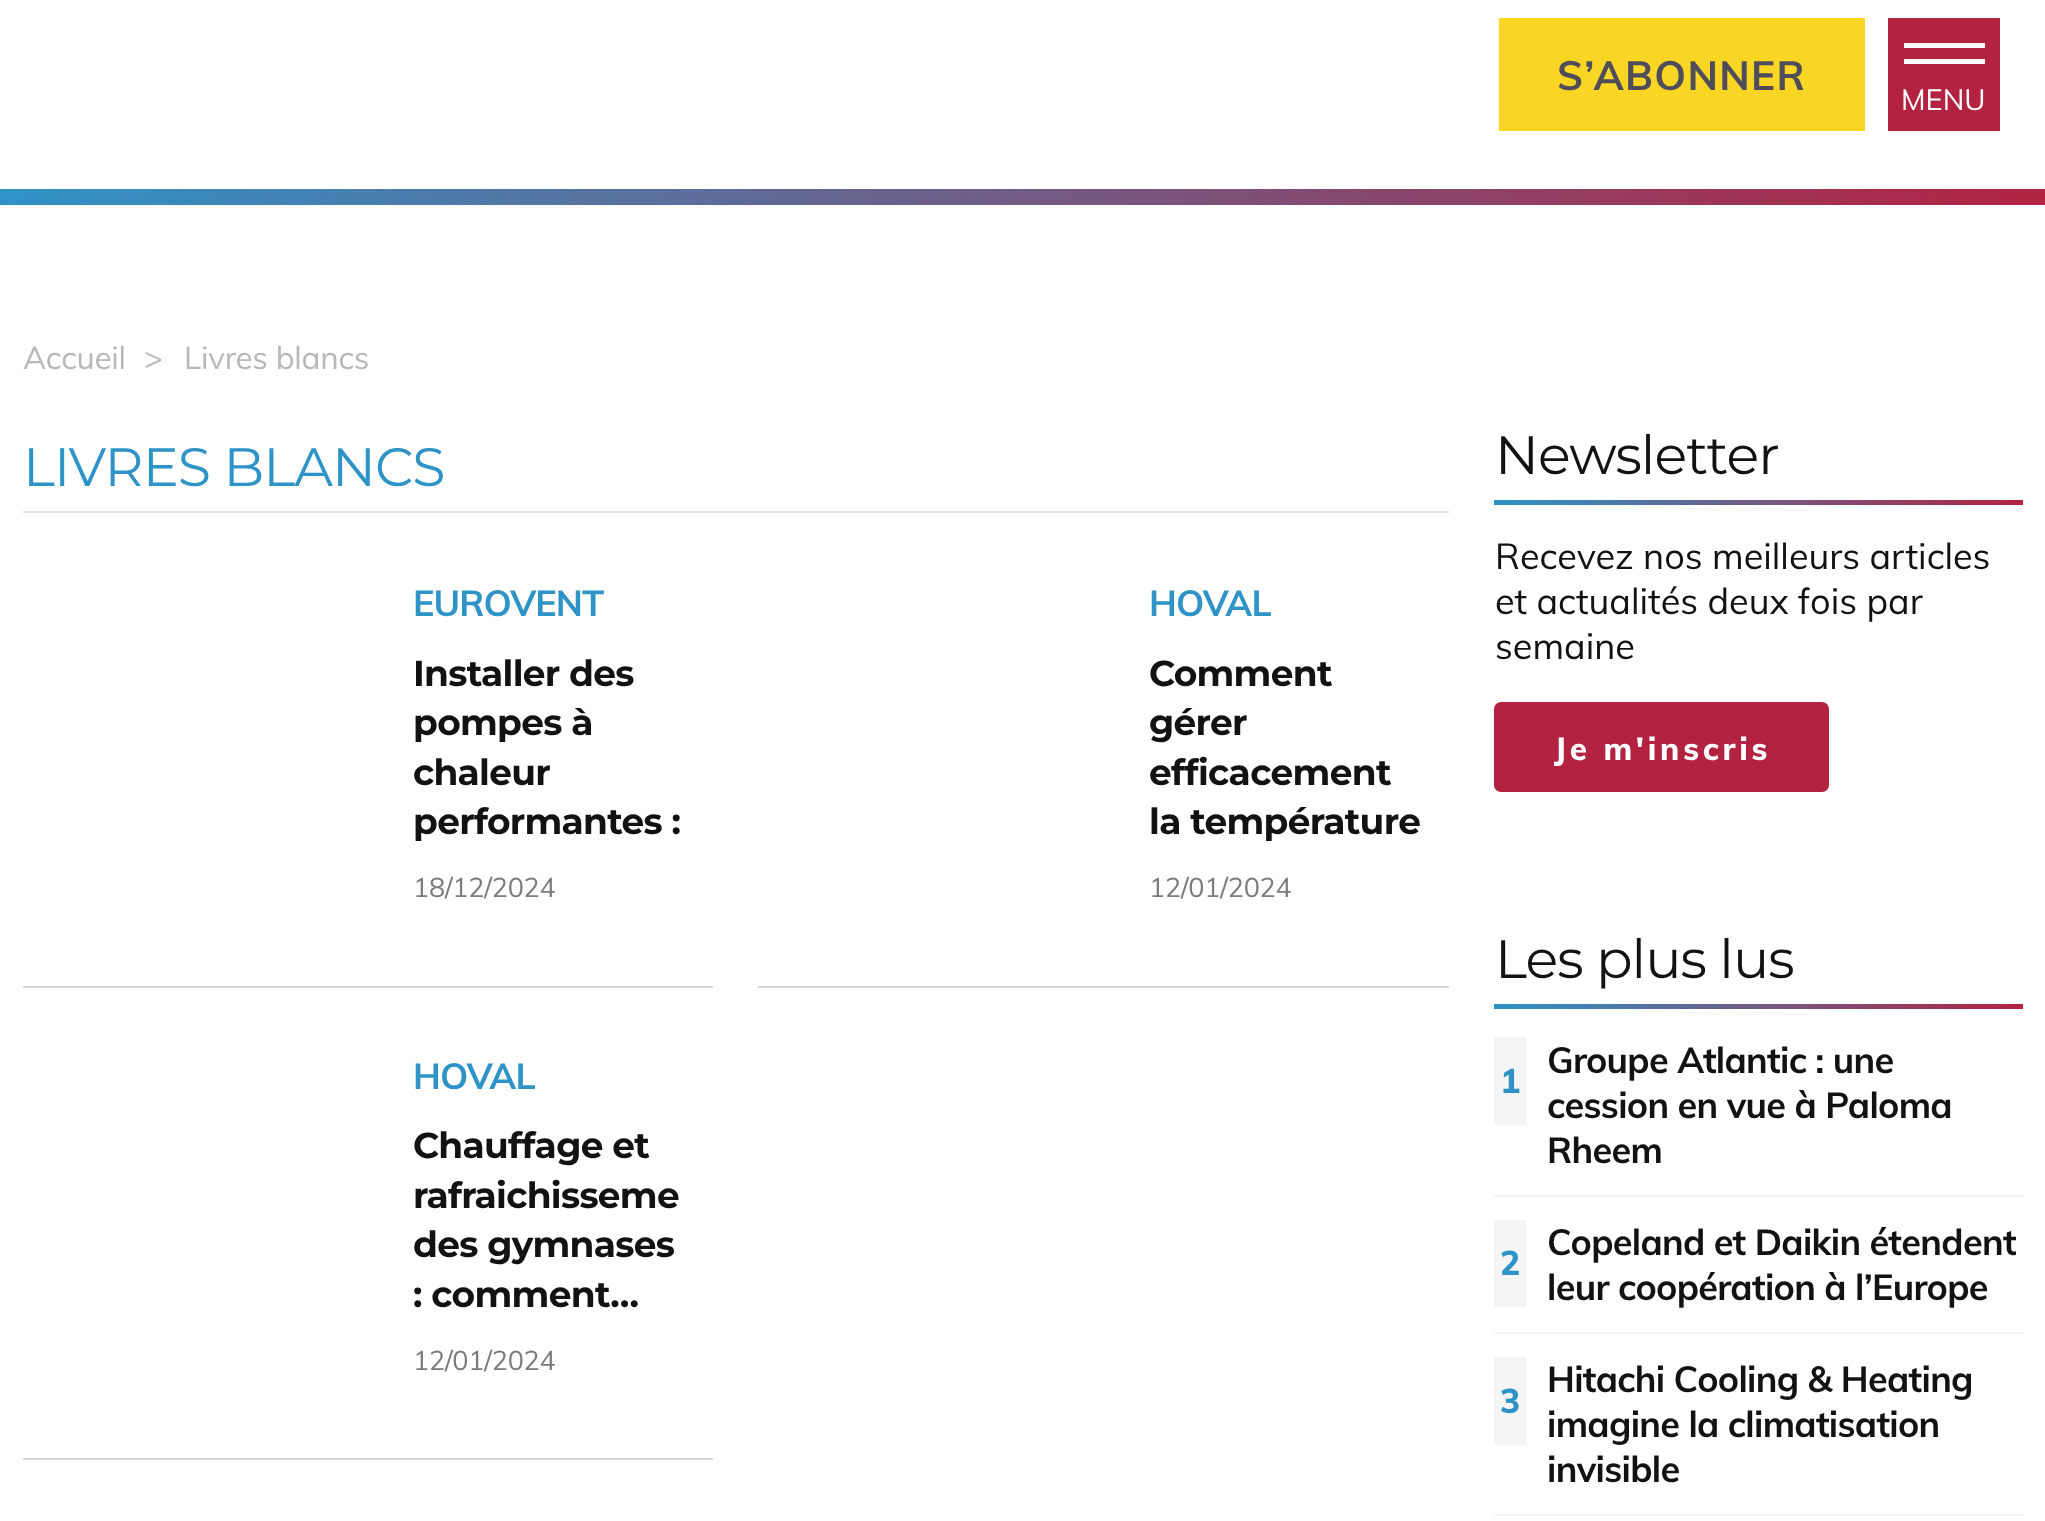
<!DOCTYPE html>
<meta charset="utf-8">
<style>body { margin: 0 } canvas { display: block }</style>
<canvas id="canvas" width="2045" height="1521"></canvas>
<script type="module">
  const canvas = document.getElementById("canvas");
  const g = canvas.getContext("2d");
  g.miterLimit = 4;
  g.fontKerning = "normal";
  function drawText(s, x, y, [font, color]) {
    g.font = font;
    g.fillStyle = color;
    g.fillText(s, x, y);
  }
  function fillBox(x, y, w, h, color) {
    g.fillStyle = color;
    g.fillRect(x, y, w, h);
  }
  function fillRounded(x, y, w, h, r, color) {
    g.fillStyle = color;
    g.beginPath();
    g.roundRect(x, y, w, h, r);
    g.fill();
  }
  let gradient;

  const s1 = ["bold 40.5px Muli", "#4F4D5A"];
  const s2 = ["29px Muli", "#FFFFFF"];
  const s3 = ["31.5px Muli", "#B8B8B8"];
  const s4 = ["54px Montserrat", "#2E94C8"];
  const s5 = ["bold 36px Muli", "#2E94C8"];
  const s6 = ["bold 36px Montserrat", "#121212"];
  const s7 = ["27px Muli", "#7B7B7B"];
  const s8 = ["54px Montserrat", "#121212"];
  const s9 = ["36px Muli", "#121212"];
  const s10 = ["800 31.5px Muli", "#FFFFFF"];
  const s11 = ["800 34px Muli", "#2E94C8"];
  const s12 = ["bold 36px Muli", "#121212"];

  fillBox(0, 0, 2045, 1521, "#FFFFFF");
  fillBox(1499, 18, 366, 113, "#F8D623");
  g.letterSpacing = "1.25px";
  drawText("S’ABONNER", 1557, 90, s1);
  fillBox(1888, 18, 112, 113, "#B42241");
  fillBox(1904, 43, 81, 5, "#FFFFFF");
  fillBox(1904, 59, 81, 5, "#FFFFFF");
  g.letterSpacing = "0px";
  drawText("MENU", 1901, 110, s2);
  gradient = g.createLinearGradient(-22, 197, 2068, 197);
  gradient.addColorStop(0, "#2E94C8");
  gradient.addColorStop(1, "#B42241");
  g.fillStyle = gradient;
  g.fillRect(0, 189, 2045, 16);
  g.letterSpacing = "-0.25px";
  drawText("Accueil", 23, 369, s3);
  drawText(">", 144, 369, s3);
  drawText("Livres blancs", 184, 369, s3);
  g.letterSpacing = "-0.9px";
  drawText("LIVRES BLANCS", 23, 486, s4);
  fillBox(23, 511, 1426, 2, "#E2E2E2");
  fillBox(23, 986, 690, 2, "#D8D8D8");
  drawText("EUROVENT", 413, 616, s5);
  g.letterSpacing = "-0.7px";
  drawText("Installer des", 413, 686, s6);
  drawText("pompes à", 413, 735, s6);
  drawText("chaleur", 413, 785, s6);
  drawText("performantes :", 413, 834, s6);
  g.letterSpacing = "-0.25px";
  drawText("18/12/2024", 413, 897, s7);
  fillBox(758, 986, 691, 2, "#D8D8D8");
  g.letterSpacing = "-0.9px";
  drawText("HOVAL", 1149, 616, s5);
  g.letterSpacing = "-0.7px";
  drawText("Comment", 1149, 686, s6);
  drawText("gérer", 1149, 735, s6);
  drawText("efficacement", 1149, 785, s6);
  drawText("la température", 1149, 834, s6);
  g.letterSpacing = "-0.25px";
  drawText("12/01/2024", 1149, 897, s7);
  fillBox(23, 1458, 690, 2, "#D8D8D8");
  g.letterSpacing = "-0.9px";
  drawText("HOVAL", 413, 1089, s5);
  g.letterSpacing = "-0.7px";
  drawText("Chauffage et", 413, 1158, s6);
  drawText("rafraichisseme", 413, 1208, s6);
  drawText("des gymnases", 413, 1257, s6);
  drawText(": comment…", 413, 1307, s6);
  g.letterSpacing = "-0.25px";
  drawText("12/01/2024", 413, 1370, s7);
  g.letterSpacing = "-0.9px";
  drawText("Newsletter", 1495, 474, s8);
  gradient = g.createLinearGradient(1494, 502, 2023, 502);
  gradient.addColorStop(0, "#2E94C8");
  gradient.addColorStop(1, "#B42241");
  g.fillStyle = gradient;
  g.fillRect(1494, 500, 529, 5);
  g.letterSpacing = "0px";
  drawText("Recevez nos meilleurs articles", 1495, 569, s9);
  drawText("et actualités deux fois par", 1495, 614, s9);
  drawText("semaine", 1495, 659, s9);
  fillRounded(1494, 702, 335, 90, 7, "#B42241");
  g.letterSpacing = "3.75px";
  drawText("Je m'inscris", 1554, 760, s10);
  g.letterSpacing = "-0.9px";
  drawText("Les plus lus", 1495, 978, s8);
  gradient = g.createLinearGradient(1494, 1006, 2023, 1006);
  gradient.addColorStop(0, "#2E94C8");
  gradient.addColorStop(1, "#B42241");
  g.fillStyle = gradient;
  g.fillRect(1494, 1004, 529, 5);
  fillBox(1494, 1195, 529, 2, "#F4F4F4");
  fillBox(1494, 1037, 32, 88, "#F5F5F5");
  g.letterSpacing = "0px";
  drawText("1", 1500, 1093, s11);
  g.letterSpacing = "-0.7px";
  drawText("Groupe Atlantic : une", 1547, 1073, s12);
  drawText("cession en vue à Paloma", 1547, 1118, s12);
  drawText("Rheem", 1547, 1163, s12);
  fillBox(1494, 1332, 529, 2, "#F4F4F4");
  fillBox(1494, 1220, 32, 87, "#F5F5F5");
  g.letterSpacing = "0px";
  drawText("2", 1500, 1275, s11);
  g.letterSpacing = "-0.7px";
  drawText("Copeland et Daikin étendent", 1547, 1255, s12);
  drawText("leur coopération à l’Europe", 1547, 1300, s12);
  fillBox(1494, 1514, 529, 2, "#F4F4F4");
  fillBox(1494, 1357, 32, 88, "#F5F5F5");
  g.letterSpacing = "0px";
  drawText("3", 1500, 1413, s11);
  g.letterSpacing = "-0.7px";
  drawText("Hitachi Cooling & Heating", 1547, 1392, s12);
  drawText("imagine la climatisation", 1547, 1437, s12);
  drawText("invisible", 1547, 1482, s12);
</script>
